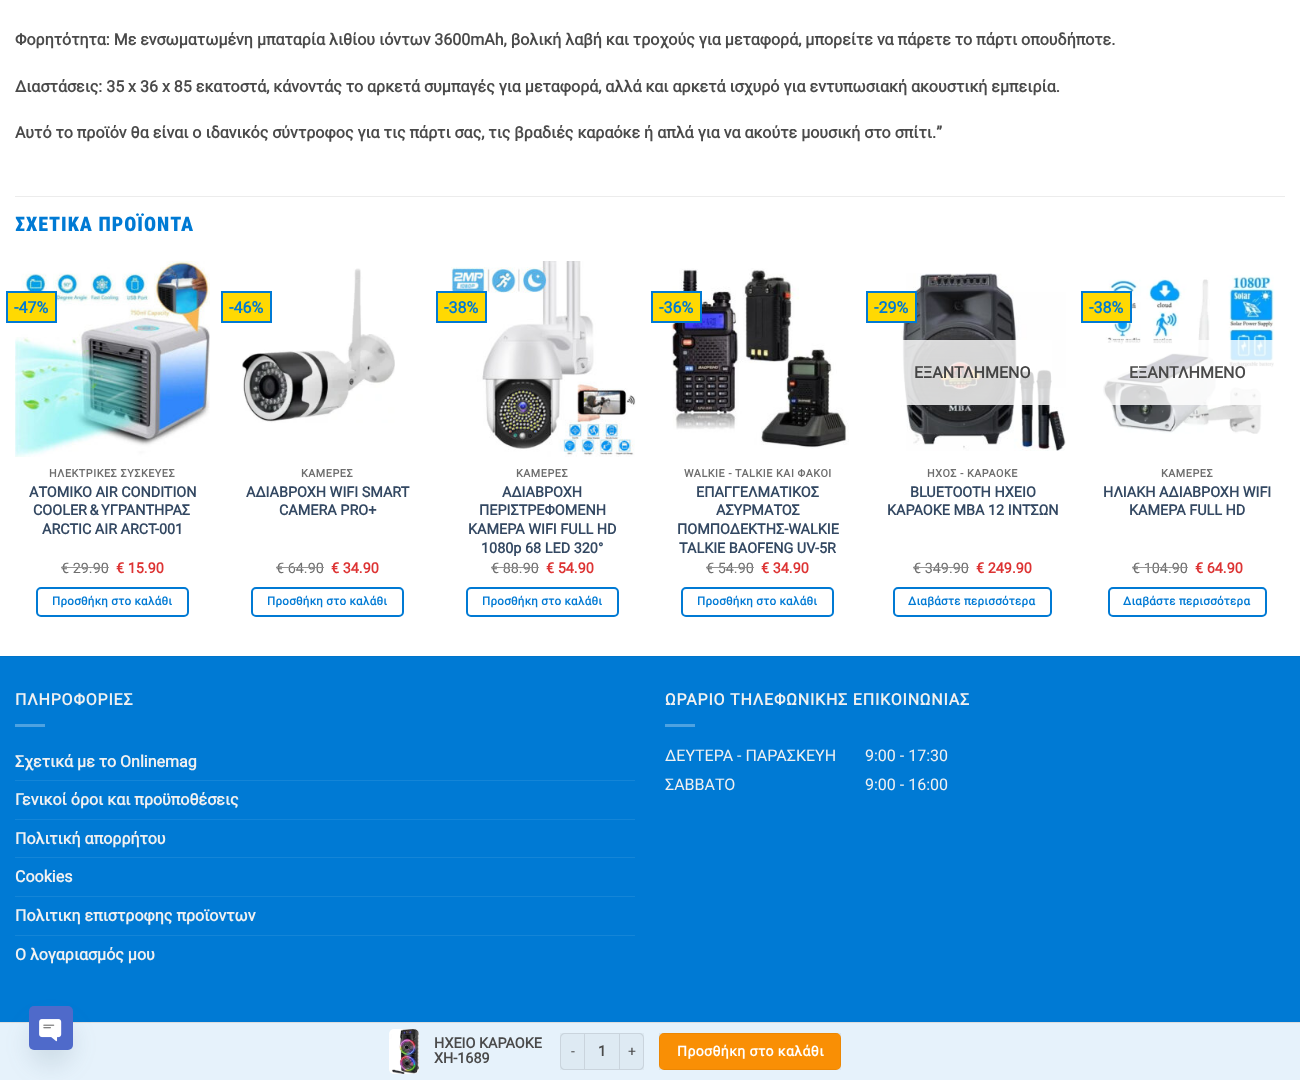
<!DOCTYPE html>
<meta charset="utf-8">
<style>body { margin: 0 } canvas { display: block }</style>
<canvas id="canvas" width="1300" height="1080"></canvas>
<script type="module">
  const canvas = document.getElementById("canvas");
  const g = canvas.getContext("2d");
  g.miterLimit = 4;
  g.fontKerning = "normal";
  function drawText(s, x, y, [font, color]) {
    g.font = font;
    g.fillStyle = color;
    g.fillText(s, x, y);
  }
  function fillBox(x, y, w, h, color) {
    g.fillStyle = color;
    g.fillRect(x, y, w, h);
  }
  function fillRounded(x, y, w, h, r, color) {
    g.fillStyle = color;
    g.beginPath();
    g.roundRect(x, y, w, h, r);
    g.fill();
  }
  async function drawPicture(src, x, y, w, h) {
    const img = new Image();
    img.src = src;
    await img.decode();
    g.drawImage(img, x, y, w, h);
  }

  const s1 = ["bold 16px Roboto", "#4A4A4A"];
  const s2 = ["900 20px Roboto Condensed", "#007AD4"];
  const s3 = ["bold 16px Roboto", "#007AD4"];
  const s4 = ["bold 10.75px Roboto", "#6E6E6E"];
  const s5 = ["bold 14.4px Roboto", "#334862"];
  const s6 = ["14.4px Roboto", "#6E6E6E"];
  const s7 = ["bold 14.4px Roboto", "#DD3333"];
  const s8 = ["bold 11.5px Roboto", "#007AD4"];
  const s9 = ["bold 16px Roboto", "#444444"];
  const s10 = ["bold 16px Roboto", "#F1F1F1"];
  const s11 = ["16px Roboto", "#F1F1F1"];
  const s12 = ["bold 14.4px Roboto", "#4A4A4A"];
  const s13 = ["14px Roboto", "#4A4A4A"];
  const s14 = ["bold 14px Roboto", "#FFFFFF"];

  fillBox(0, 0, 1300, 1080, "#FFFFFF");
  drawText("Φορητότητα: Με ενσωματωμένη μπαταρία λιθίου ιόντων 3600mAh, βολική λαβή και τροχούς για μεταφορά, μπορείτε να πάρετε το πάρτι οπουδήποτε.", 15, 45, s1);
  drawText("Διαστάσεις: 35 x 36 x 85 εκατοστά, κάνοντάς το αρκετά συμπαγές για μεταφορά, αλλά και αρκετά ισχυρό για εντυπωσιακή ακουστική εμπειρία.", 15, 92, s1);
  drawText("Αυτό το προϊόν θα είναι ο ιδανικός σύντροφος για τις πάρτι σας, τις βραδιές καραόκε ή απλά για να ακούτε μουσική στο σπίτι.”", 15, 138, s1);
  fillBox(15, 196, 1270, 1, "#ECECEC");
  g.letterSpacing = "1px";
  drawText("ΣΧΕΤΙΚΑ ΠΡΟΪΟΝΤΑ", 15, 231, s2);
  await drawPicture("pic1.png", 15, 261, 195, 196);
  g.fillStyle = "#FFD902";
  g.beginPath();
  g.rect(7, 292, 49, 30);
  g.fill();
  g.strokeStyle = "#007AD4";
  g.lineWidth = 2;
  g.stroke();
  g.letterSpacing = "0px";
  drawText("-47%", 14, 313, s3);
  g.letterSpacing = "0.55px";
  drawText("ΗΛΕΚΤΡΙΚΕΣ ΣΥΣΚΕΥΕΣ", 49, 477, s4);
  g.letterSpacing = "0px";
  drawText("ΑΤΟΜΙΚΟ AIR CONDITION", 29, 497, s5);
  g.wordSpacing = "-1px";
  drawText("COOLER & ΥΓΡΑΝΤΗΡΑΣ", 33, 515, s5);
  g.wordSpacing = "0px";
  drawText("ARCTIC AIR ARCT-001", 42, 534, s5);
  drawText("€ 29.90", 61, 573, s6);
  fillBox(61, 567, 48, 1, "#929292");
  drawText("€ 15.90", 116, 573, s7);
  g.beginPath();
  g.roundRect(37, 588, 151, 28, 4);
  g.stroke();
  g.letterSpacing = "0.3px";
  drawText("Προσθήκη στο καλάθι", 52, 605, s8);
  await drawPicture("pic2.png", 242, 268, 153, 155);
  g.fillStyle = "#FFD902";
  g.beginPath();
  g.rect(222, 292, 49, 30);
  g.fill();
  g.stroke();
  g.letterSpacing = "0px";
  drawText("-46%", 229, 313, s3);
  g.letterSpacing = "0.55px";
  drawText("ΚΑΜΕΡΕΣ", 301, 477, s4);
  g.letterSpacing = "0px";
  drawText("ΑΔΙΑΒΡΟΧΗ WIFI SMART", 246, 497, s5);
  drawText("CAMERA PRO+", 279, 515, s5);
  drawText("€ 64.90", 276, 573, s6);
  fillBox(276, 567, 48, 1, "#929292");
  drawText("€ 34.90", 331, 573, s7);
  g.beginPath();
  g.roundRect(252, 588, 151, 28, 4);
  g.stroke();
  g.letterSpacing = "0.3px";
  drawText("Προσθήκη στο καλάθι", 267, 605, s8);
  await drawPicture("pic3.png", 451, 261, 185, 196);
  g.fillStyle = "#FFD902";
  g.beginPath();
  g.rect(437, 292, 49, 30);
  g.fill();
  g.stroke();
  g.letterSpacing = "0px";
  drawText("-38%", 444, 313, s3);
  g.letterSpacing = "0.55px";
  drawText("ΚΑΜΕΡΕΣ", 516, 477, s4);
  g.letterSpacing = "0px";
  drawText("ΑΔΙΑΒΡΟΧΗ", 502, 497, s5);
  drawText("ΠΕΡΙΣΤΡΕΦΟΜΕΝΗ", 479, 515, s5);
  drawText("ΚΑΜΕΡΑ WIFI FULL HD", 468, 534, s5);
  drawText("1080p 68 LED 320°", 481, 553, s5);
  drawText("€ 88.90", 491, 573, s6);
  fillBox(491, 567, 48, 1, "#929292");
  drawText("€ 54.90", 546, 573, s7);
  g.beginPath();
  g.roundRect(467, 588, 151, 28, 4);
  g.stroke();
  g.letterSpacing = "0.3px";
  drawText("Προσθήκη στο καλάθι", 482, 605, s8);
  await drawPicture("pic4.png", 671, 268, 178, 181);
  g.fillStyle = "#FFD902";
  g.beginPath();
  g.rect(652, 292, 49, 30);
  g.fill();
  g.stroke();
  g.letterSpacing = "0px";
  drawText("-36%", 659, 313, s3);
  g.letterSpacing = "0.55px";
  drawText("WALKIE - TALKIE ΚΑΙ ΦΑΚΟΙ", 684, 477, s4);
  g.letterSpacing = "0px";
  drawText("ΕΠΑΓΓΕΛΜΑΤΙΚΟΣ", 696, 497, s5);
  drawText("ΑΣΥΡΜΑΤΟΣ", 716, 515, s5);
  drawText("ΠΟΜΠΟΔΕΚΤΗΣ-WALKIE", 677, 534, s5);
  drawText("TALKIE BAOFENG UV-5R", 679, 553, s5);
  drawText("€ 54.90", 706, 573, s6);
  fillBox(706, 567, 48, 1, "#929292");
  drawText("€ 34.90", 761, 573, s7);
  g.beginPath();
  g.roundRect(682, 588, 151, 28, 4);
  g.stroke();
  g.letterSpacing = "0.3px";
  drawText("Προσθήκη στο καλάθι", 697, 605, s8);
  await drawPicture("pic5.png", 901, 273, 165, 178);
  g.fillStyle = "#FFD902";
  g.beginPath();
  g.rect(867, 292, 49, 30);
  g.fill();
  g.stroke();
  g.letterSpacing = "0px";
  drawText("-29%", 874, 313, s3);
  fillBox(901, 340, 151, 65, "rgba(255, 255, 255, 0.81)");
  drawText("ΕΞΑΝΤΛΗΜΕΝΟ", 914, 378, s9);
  g.letterSpacing = "0.55px";
  drawText("ΗΧΟΣ - ΚΑΡΑΟΚΕ", 927, 477, s4);
  g.letterSpacing = "0px";
  drawText("BLUETOOTH ΗΧΕΙΟ", 910, 497, s5);
  drawText("ΚΑΡΑΟΚΕ MBA 12 ΙΝΤΣΩΝ", 887, 515, s5);
  drawText("€ 349.90", 913, 573, s6);
  fillBox(913, 567, 56, 1, "#929292");
  drawText("€ 249.90", 976, 573, s7);
  g.beginPath();
  g.roundRect(894, 588, 157, 28, 4);
  g.stroke();
  g.letterSpacing = "0.3px";
  drawText("Διαβάστε περισσότερα", 908, 605, s8);
  await drawPicture("pic6.png", 1102, 275, 173, 159);
  g.fillStyle = "#FFD902";
  g.beginPath();
  g.rect(1082, 292, 49, 30);
  g.fill();
  g.stroke();
  g.letterSpacing = "0px";
  drawText("-38%", 1089, 313, s3);
  fillBox(1102, 340, 173, 65, "rgba(255, 255, 255, 0.81)");
  drawText("ΕΞΑΝΤΛΗΜΕΝΟ", 1129, 378, s1);
  g.letterSpacing = "0.55px";
  drawText("ΚΑΜΕΡΕΣ", 1161, 477, s4);
  g.letterSpacing = "0px";
  drawText("ΗΛΙΑΚΗ ΑΔΙΑΒΡΟΧΗ WIFI", 1103, 497, s5);
  drawText("ΚΑΜΕΡΑ FULL HD", 1129, 515, s5);
  drawText("€ 104.90", 1132, 573, s6);
  fillBox(1132, 567, 56, 1, "#929292");
  drawText("€ 64.90", 1195, 573, s7);
  g.beginPath();
  g.roundRect(1109, 588, 157, 28, 4);
  g.stroke();
  g.letterSpacing = "0.3px";
  drawText("Διαβάστε περισσότερα", 1123, 605, s8);
  fillBox(0, 657, 1300, 423, "#007AD4");
  fillBox(0, 656, 1300, 1, "#0074C9");
  g.letterSpacing = "0.8px";
  drawText("ΠΛΗΡΟΦΟΡΙΕΣ", 15, 705, s10);
  fillBox(15, 724, 30, 3, "#4DA2E1");
  g.letterSpacing = "0px";
  drawText("Σχετικά με το Onlinemag", 15, 767, s10);
  fillBox(15, 780, 620, 1, "#1485D7");
  drawText("Γενικοί όροι και προϋποθέσεις", 15, 805, s10);
  fillBox(15, 819, 620, 1, "#1485D7");
  drawText("Πολιτική απορρήτου", 15, 844, s10);
  fillBox(15, 857, 620, 1, "#1485D7");
  drawText("Cookies", 15, 882, s10);
  fillBox(15, 896, 620, 1, "#1485D7");
  drawText("Πολιτικη επιστροφης προϊοντων", 15, 921, s10);
  fillBox(15, 935, 620, 1, "#1485D7");
  drawText("Ο λογαριασμός μου", 15, 960, s10);
  g.letterSpacing = "0.8px";
  drawText("ΩΡΑΡΙΟ ΤΗΛΕΦΩΝΙΚΗΣ ΕΠΙΚΟΙΝΩΝΙΑΣ", 665, 705, s10);
  fillBox(665, 724, 30, 3, "#4DA2E1");
  g.letterSpacing = "0px";
  drawText("ΔΕΥΤΕΡΑ - ΠΑΡΑΣΚΕΥΗ", 665, 761, s11);
  drawText("9:00 - 17:30", 865, 761, s11);
  drawText("ΣΑΒΒΑΤΟ", 665, 790, s11);
  drawText("9:00 - 16:00", 865, 790, s11);
  fillBox(0, 1023, 1300, 57, "rgba(255, 255, 255, 0.9)");
  fillBox(0, 1022, 1300, 1, "#DDDDDD");
  g.fillStyle = "rgba(73, 104, 126, 0.16)";
  g.filter = "blur(12px)";
  g.beginPath();
  g.roundRect(29, 1022, 44, 44, 22);
  g.fill();
  g.filter = "none";
  fillRounded(29, 1006, 44, 44, 5, "#4F6ACA");
  await drawPicture("pic7.png", 39, 1019, 23, 23);
  await drawPicture("pic8.png", 389, 1029, 30, 45);
  drawText("ΗΧΕΙΟ ΚΑΡΑΟΚΕ", 434, 1048, s12);
  drawText("XH-1689", 434, 1063, s12);
  fillBox(560, 1033, 24, 37, "rgba(0, 0, 0, 0.03)");
  g.fillStyle = "rgba(0, 0, 0, 0.09)";
  g.beginPath();
  g.moveTo(565, 1033);
  g.lineTo(584, 1033);
  g.lineTo(584, 1070);
  g.lineTo(565, 1070);
  g.bezierCurveTo(562, 1070, 560, 1068, 560, 1065);
  g.lineTo(560, 1038);
  g.bezierCurveTo(560, 1035, 562, 1033, 565, 1033);
  g.closePath();
  g.moveTo(565, 1034);
  g.lineTo(584, 1034);
  g.lineTo(584, 1069);
  g.lineTo(565, 1069);
  g.bezierCurveTo(563, 1069, 561, 1067, 561, 1065);
  g.lineTo(561, 1038);
  g.bezierCurveTo(561, 1036, 563, 1034, 565, 1034);
  g.closePath();
  g.fill("evenodd");
  g.letterSpacing = "0.4px";
  drawText("-", 571, 1056, s13);
  fillBox(584, 1033, 36, 37, "rgba(0, 0, 0, 0.03)");
  g.strokeStyle = "rgba(0, 0, 0, 0.09)";
  g.lineWidth = 1;
  g.strokeRect(584.5, 1033.5, 35, 36);
  g.letterSpacing = "0px";
  drawText("1", 598, 1056, s12);
  fillBox(620, 1033, 24, 37, "rgba(0, 0, 0, 0.03)");
  g.fillStyle = "rgba(0, 0, 0, 0.09)";
  g.beginPath();
  g.moveTo(620, 1033);
  g.lineTo(639, 1033);
  g.bezierCurveTo(642, 1033, 644, 1035, 644, 1038);
  g.lineTo(644, 1065);
  g.bezierCurveTo(644, 1068, 642, 1070, 639, 1070);
  g.lineTo(620, 1070);
  g.closePath();
  g.moveTo(620, 1034);
  g.lineTo(639, 1034);
  g.bezierCurveTo(641, 1034, 643, 1036, 643, 1038);
  g.lineTo(643, 1065);
  g.bezierCurveTo(643, 1067, 641, 1069, 639, 1069);
  g.lineTo(620, 1069);
  g.closePath();
  g.fill("evenodd");
  g.letterSpacing = "0.4px";
  drawText("+", 628, 1056, s13);
  fillRounded(659, 1033, 182, 37, 5, "#F98F05");
  g.strokeStyle = "rgba(0, 0, 0, 0.05)";
  g.strokeRect(659.5, 1033.5, 181, 36);
  drawText("Προσθήκη στο καλάθι", 677, 1056, s14);
</script>
